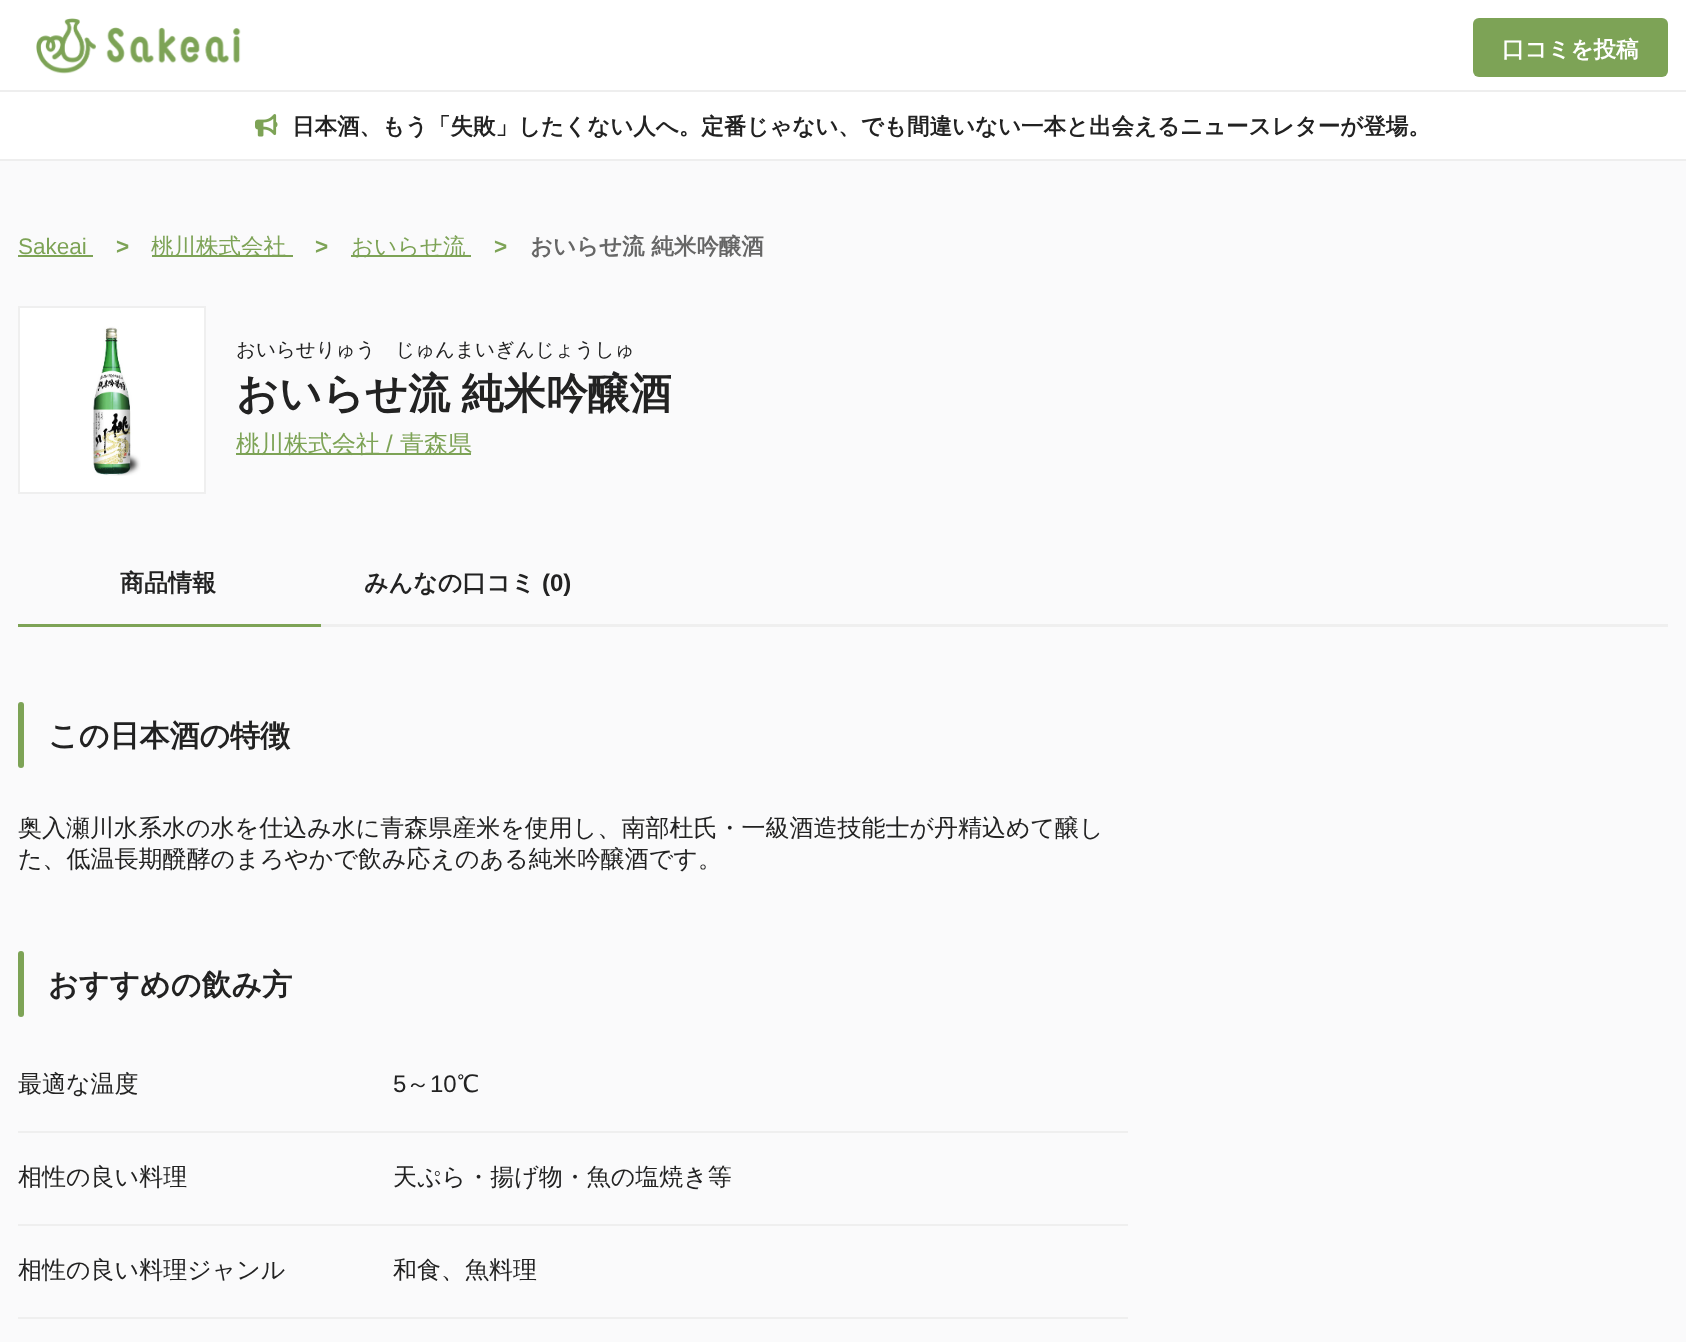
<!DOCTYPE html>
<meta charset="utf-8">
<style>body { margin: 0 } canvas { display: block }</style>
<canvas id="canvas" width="1686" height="1342"></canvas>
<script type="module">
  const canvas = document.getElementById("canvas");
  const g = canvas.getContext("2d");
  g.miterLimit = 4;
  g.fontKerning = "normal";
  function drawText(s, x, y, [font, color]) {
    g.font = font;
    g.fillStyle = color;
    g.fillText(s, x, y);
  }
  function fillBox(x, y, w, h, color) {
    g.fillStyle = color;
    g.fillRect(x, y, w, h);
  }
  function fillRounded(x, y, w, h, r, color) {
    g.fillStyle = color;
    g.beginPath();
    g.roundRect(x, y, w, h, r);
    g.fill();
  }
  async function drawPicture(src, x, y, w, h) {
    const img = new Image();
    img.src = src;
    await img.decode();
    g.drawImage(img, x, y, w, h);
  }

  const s1 = ["bold 22.5px WenQuanYi Zen Hei", "#FFFFFF"];
  const s2 = ["bold 22.5px WenQuanYi Zen Hei", "#222222"];
  const s3 = ["22.5px Liberation Sans", "#7DA356"];
  const s4 = ["bold 22.5px Liberation Sans", "#7DA356"];
  const s5 = ["500 22.5px WenQuanYi Zen Hei", "#7DA356"];
  const s6 = ["bold 22.5px WenQuanYi Zen Hei", "#666666"];
  const s7 = ["500 19.5px WenQuanYi Zen Hei", "#222222"];
  const s8 = ["bold 42px WenQuanYi Zen Hei", "#222222"];
  const s9 = ["500 24px WenQuanYi Zen Hei", "#7DA356"];
  const s10 = ["24px Liberation Sans", "#7DA356"];
  const s11 = ["bold 24px WenQuanYi Zen Hei", "#222222"];
  const s12 = ["bold 24px Liberation Sans", "#222222"];
  const s13 = ["bold 30px WenQuanYi Zen Hei", "#222222"];
  const s14 = ["500 24px WenQuanYi Zen Hei", "#222222"];
  const s15 = ["24px Liberation Sans", "#222222"];

  fillBox(0, 0, 1686, 1342, "#FAFAFB");
  fillBox(0, 0, 1686, 90, "#FFFFFF");
  fillBox(0, 90, 1686, 2, "#EEEEEE");
  await drawPicture("pic1.png", 36, 18, 205, 56);
  fillRounded(1473, 18, 195, 59, 6, "#7DA356");
  drawText("口コミを投稿", 1502, 57, s1);
  fillBox(0, 92, 1686, 67, "#FFFFFF");
  fillBox(0, 159, 1686, 2, "#EEEEEE");
  await drawPicture("pic2.png", 255, 114, 23, 23);
  drawText("日本酒、もう「失敗」したくない人へ。定番じゃない、でも間違いない一本と出会えるニュースレターが登場。", 292, 134, s2);
  drawText("Sakeai", 18, 254, s3);
  fillBox(18, 255, 75, 2, "#7DA356");
  drawText(">", 116, 254, s4);
  fillBox(152, 255, 141, 2, "#7DA356");
  drawText("桃川株式会社", 151, 254, s5);
  drawText(">", 315, 254, s4);
  fillBox(351, 255, 120, 2, "#7DA356");
  drawText("おいらせ流", 351, 254, s5);
  drawText(">", 494, 254, s4);
  drawText("おいらせ流 純米吟醸酒", 530, 254, s6);
  g.fillStyle = "#FFFFFF";
  g.beginPath();
  g.rect(19, 307, 186, 186);
  g.fill();
  g.strokeStyle = "#EFEFEF";
  g.lineWidth = 2;
  g.stroke();
  await drawPicture("pic3.png", 92, 326, 49, 150);
  drawText("おいらせりゅう　じゅんまいぎんじょうしゅ", 236, 356, s7);
  g.wordSpacing = "-1px";
  drawText("おいらせ流 純米吟醸酒", 236, 408, s8);
  fillBox(236, 453, 235, 2, "#7DA356");
  g.wordSpacing = "0px";
  drawText("桃川株式会社", 236, 452, s9);
  drawText("/", 386, 452, s10);
  drawText("青森県", 400, 452, s9);
  fillBox(321, 624, 1347, 3, "#EFEFEF");
  drawText("商品情報", 120, 591, s11);
  drawText("みんなの口コミ", 364, 591, s11);
  drawText("(0)", 542, 591, s12);
  fillBox(18, 624, 303, 3, "#7DA356");
  fillRounded(18, 702, 6, 66, 3, "#7DA356");
  drawText("この日本酒の特徴", 48, 746, s13);
  drawText("奥入瀬川水系水の水を仕込み水に青森県産米を使用し、南部杜氏・一級酒造技能士が丹精込めて醸し", 18, 836, s14);
  drawText("た、低温長期醗酵のまろやかで飲み応えのある純米吟醸酒です。", 18, 867, s14);
  fillRounded(18, 951, 6, 66, 3, "#7DA356");
  drawText("おすすめの飲み方", 48, 995, s13);
  fillBox(18, 1131, 1110, 2, "#EFEFEF");
  drawText("最適な温度", 18, 1092, s14);
  drawText("5", 393, 1092, s15);
  drawText("～", 406, 1092, s14);
  drawText("10", 430, 1092, s15);
  drawText("℃", 457, 1092, s14);
  fillBox(18, 1224, 1110, 2, "#EFEFEF");
  drawText("相性の良い料理", 18, 1185, s14);
  drawText("天ぷら・揚げ物・魚の塩焼き等", 393, 1185, s14);
  fillBox(18, 1317, 1110, 2, "#EFEFEF");
  drawText("相性の良い料理ジャンル", 18, 1278, s14);
  drawText("和食、魚料理", 393, 1278, s14);
</script>
